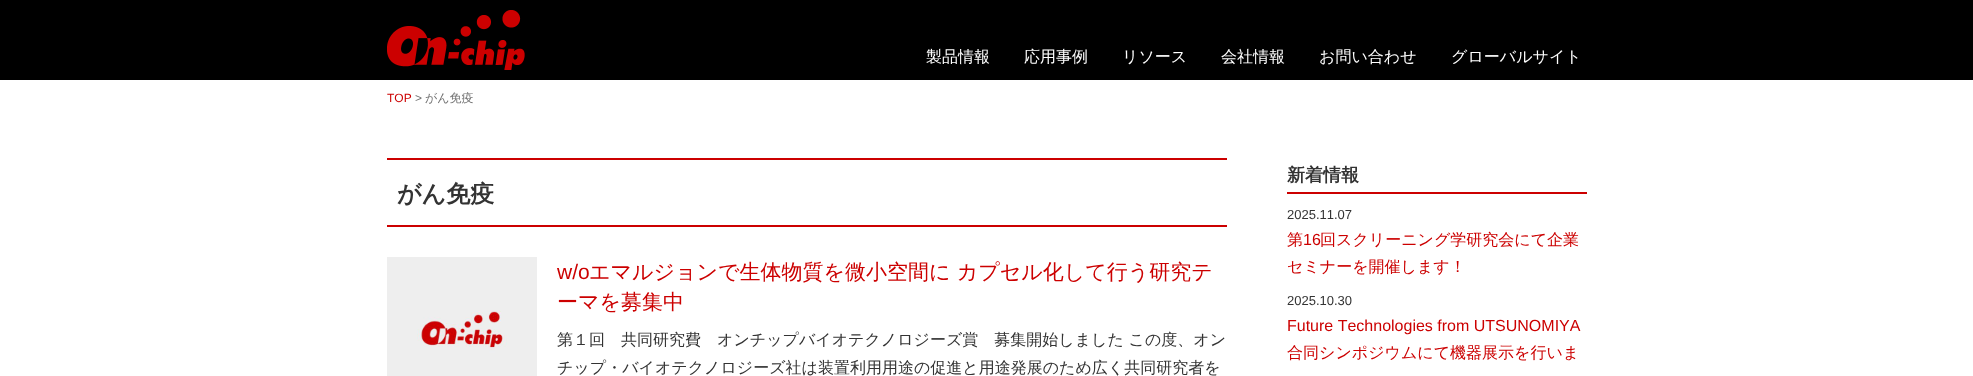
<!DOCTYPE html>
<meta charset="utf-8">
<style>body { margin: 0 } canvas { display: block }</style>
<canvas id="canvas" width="1973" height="376"></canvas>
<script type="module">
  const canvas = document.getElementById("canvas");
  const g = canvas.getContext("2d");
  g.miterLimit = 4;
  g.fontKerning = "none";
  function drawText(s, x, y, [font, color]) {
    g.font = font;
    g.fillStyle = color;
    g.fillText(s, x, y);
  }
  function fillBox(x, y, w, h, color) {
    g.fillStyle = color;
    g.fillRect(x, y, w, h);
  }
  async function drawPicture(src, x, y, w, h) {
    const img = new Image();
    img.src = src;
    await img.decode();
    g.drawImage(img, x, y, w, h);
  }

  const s1 = ["500 16px WenQuanYi Zen Hei", "#FFFFFF"];
  const s2 = ["12px Liberation Sans", "#CC0000"];
  const s3 = ["12px Liberation Sans", "#707070"];
  const s4 = ["500 12px WenQuanYi Zen Hei", "#707070"];
  const s5 = ["bold 24px WenQuanYi Zen Hei", "#333333"];
  const s6 = ["21px Liberation Sans", "#CC0000"];
  const s7 = ["500 21px WenQuanYi Zen Hei", "#CC0000"];
  const s8 = ["500 16px WenQuanYi Zen Hei", "#333333"];
  const s9 = ["bold 18px WenQuanYi Zen Hei", "#333333"];
  const s10 = ["13px Liberation Sans", "#333333"];
  const s11 = ["500 16px WenQuanYi Zen Hei", "#CC0000"];
  const s12 = ["16px Liberation Sans", "#CC0000"];

  fillBox(0, 0, 1973, 376, "#FFFFFF");
  fillBox(0, 0, 1973, 80, "#000000");
  await drawPicture("pic1.png", 387, 10, 138, 60);
  drawText("製品情報", 926, 62, s1);
  drawText("応用事例", 1024, 62, s1);
  drawText("リソース", 1122, 62, s1);
  drawText("会社情報", 1221, 62, s1);
  drawText("お問い合わせ", 1319, 62, s1);
  drawText("グローバルサイト", 1451, 62, s1);
  drawText("TOP", 387, 102, s2);
  drawText(">", 415, 102, s3);
  drawText("がん免疫", 425, 102, s4);
  fillBox(387, 158, 840, 2, "#CC0000");
  fillBox(387, 225, 840, 2, "#CC0000");
  drawText("がん免疫", 397, 202, s5);
  await drawPicture("pic2.png", 387, 257, 150, 119);
  drawText("w/o", 557, 279, s6);
  drawText("エマルジョンで生体物質を微小空間に カプセル化して行う研究テ", 589, 279, s7);
  drawText("ーマを募集中", 557, 309, s7);
  drawText("第１回　共同研究費　オンチップバイオテクノロジーズ賞　募集開始しました この度、オン", 557, 345, s8);
  drawText("チップ・バイオテクノロジーズ社は装置利用用途の促進と用途発展のため広く共同研究者を", 557, 373, s8);
  fillBox(1287, 192, 300, 2, "#CC0000");
  drawText("新着情報", 1287, 181, s9);
  drawText("2025.11.07", 1287, 219, s10);
  drawText("第", 1287, 245, s11);
  drawText("16", 1303, 245, s12);
  drawText("回スクリーニング学研究会にて企業", 1320, 245, s11);
  drawText("セミナーを開催します！", 1287, 272, s11);
  drawText("2025.10.30", 1287, 305, s10);
  drawText("Future Technologies from UTSUNOMIYA", 1287, 331, s12);
  drawText("合同シンポジウムにて機器展示を行いま", 1287, 358, s11);
</script>
